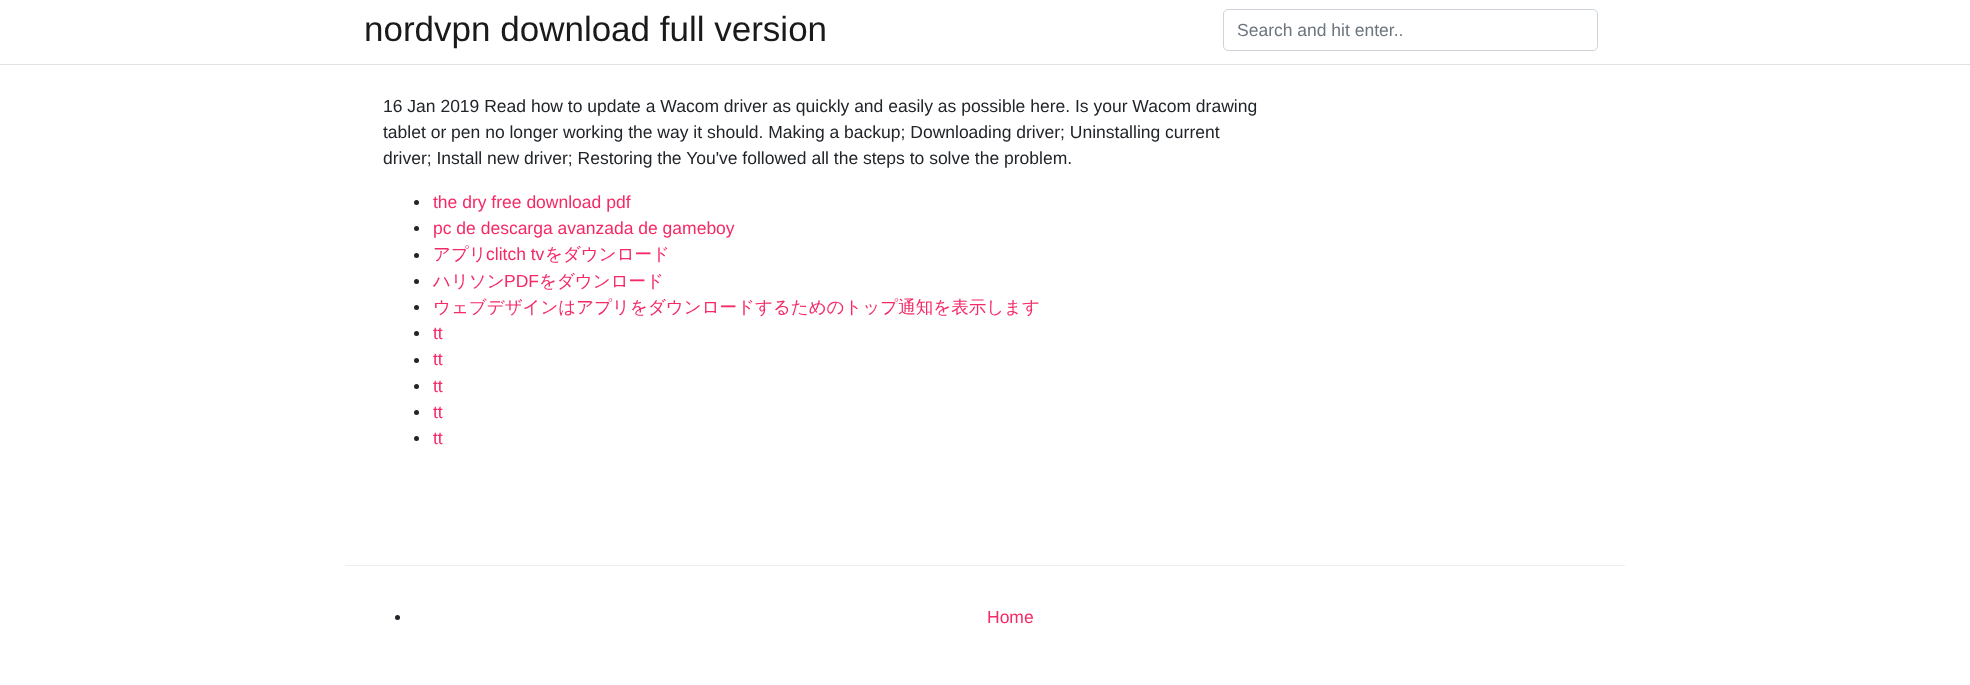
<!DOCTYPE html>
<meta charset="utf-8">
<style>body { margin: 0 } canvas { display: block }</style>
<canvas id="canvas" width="1970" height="685"></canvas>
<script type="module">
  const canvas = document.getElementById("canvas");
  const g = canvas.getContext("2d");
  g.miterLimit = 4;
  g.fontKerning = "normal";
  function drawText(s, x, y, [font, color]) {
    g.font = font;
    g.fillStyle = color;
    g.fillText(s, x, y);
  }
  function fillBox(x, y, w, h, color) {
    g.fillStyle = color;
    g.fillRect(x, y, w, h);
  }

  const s1 = ["35px Liberation Sans", "#1A1A1A"];
  const s2 = ["17.5px Liberation Sans", "#6C757D"];
  const s3 = ["17.5px Liberation Sans", "#212529"];
  const s4 = ["17.5px Liberation Sans", "#F42966"];
  const s5 = ["500 17.5px WenQuanYi Zen Hei", "#F42966"];

  fillBox(0, 0, 1970, 685, "#FFFFFF");
  fillBox(0, 64, 1970, 1, "#E1E2E3");
  drawText("nordvpn download full version", 364, 41, s1);
  g.beginPath();
  g.roundRect(1223.5, 9.5, 374, 41, 4.5);
  g.strokeStyle = "#CED4DA";
  g.stroke();
  drawText("Search and hit enter..", 1237, 36, s2);
  drawText("16 Jan 2019 Read how to update a Wacom driver as quickly and easily as possible here. Is your Wacom drawing", 383, 112, s3);
  drawText("tablet or pen no longer working the way it should. Making a backup; Downloading driver; Uninstalling current", 383, 138, s3);
  drawText("driver; Install new driver; Restoring the You've followed all the steps to solve the problem.", 383, 164, s3);
  g.beginPath();
  g.arc(416.5, 202.5, 2.5, 0, Math.PI * 2);
  g.fill();
  drawText("the dry free download pdf", 433, 208, s4);
  g.fillStyle = "#212529";
  g.beginPath();
  g.arc(416.5, 228.5, 2.5, 0, Math.PI * 2);
  g.fill();
  drawText("pc de descarga avanzada de gameboy", 433, 234, s4);
  g.fillStyle = "#212529";
  g.beginPath();
  g.arc(416.5, 255.5, 2.5, 0, Math.PI * 2);
  g.fill();
  drawText("アプリ", 433, 260, s5);
  drawText("clitch tv", 486, 260, s4);
  drawText("をダウンロード", 545, 260, s5);
  g.fillStyle = "#212529";
  g.beginPath();
  g.arc(416.5, 281.5, 2.5, 0, Math.PI * 2);
  g.fill();
  drawText("ハリソン", 433, 287, s5);
  drawText("PDF", 504, 287, s4);
  drawText("をダウンロード", 539, 287, s5);
  g.fillStyle = "#212529";
  g.beginPath();
  g.arc(416.5, 307.5, 2.5, 0, Math.PI * 2);
  g.fill();
  drawText("ウェブデザインはアプリをダウンロードするためのトップ通知を表示します", 433, 313, s5);
  g.fillStyle = "#212529";
  g.beginPath();
  g.arc(416.5, 333.5, 2.5, 0, Math.PI * 2);
  g.fill();
  drawText("tt", 433, 339, s4);
  g.fillStyle = "#212529";
  g.beginPath();
  g.arc(416.5, 360.5, 2.5, 0, Math.PI * 2);
  g.fill();
  drawText("tt", 433, 365, s4);
  g.fillStyle = "#212529";
  g.beginPath();
  g.arc(416.5, 386.5, 2.5, 0, Math.PI * 2);
  g.fill();
  drawText("tt", 433, 392, s4);
  g.fillStyle = "#212529";
  g.beginPath();
  g.arc(416.5, 412.5, 2.5, 0, Math.PI * 2);
  g.fill();
  drawText("tt", 433, 418, s4);
  g.fillStyle = "#212529";
  g.beginPath();
  g.arc(416.5, 438.5, 2.5, 0, Math.PI * 2);
  g.fill();
  drawText("tt", 433, 444, s4);
  fillBox(345, 565, 1280, 1, "#EEEEEE");
  g.fillStyle = "#212529";
  g.beginPath();
  g.arc(397.5, 617.5, 2.5, 0, Math.PI * 2);
  g.fill();
  drawText("Home", 987, 623, s4);
</script>
